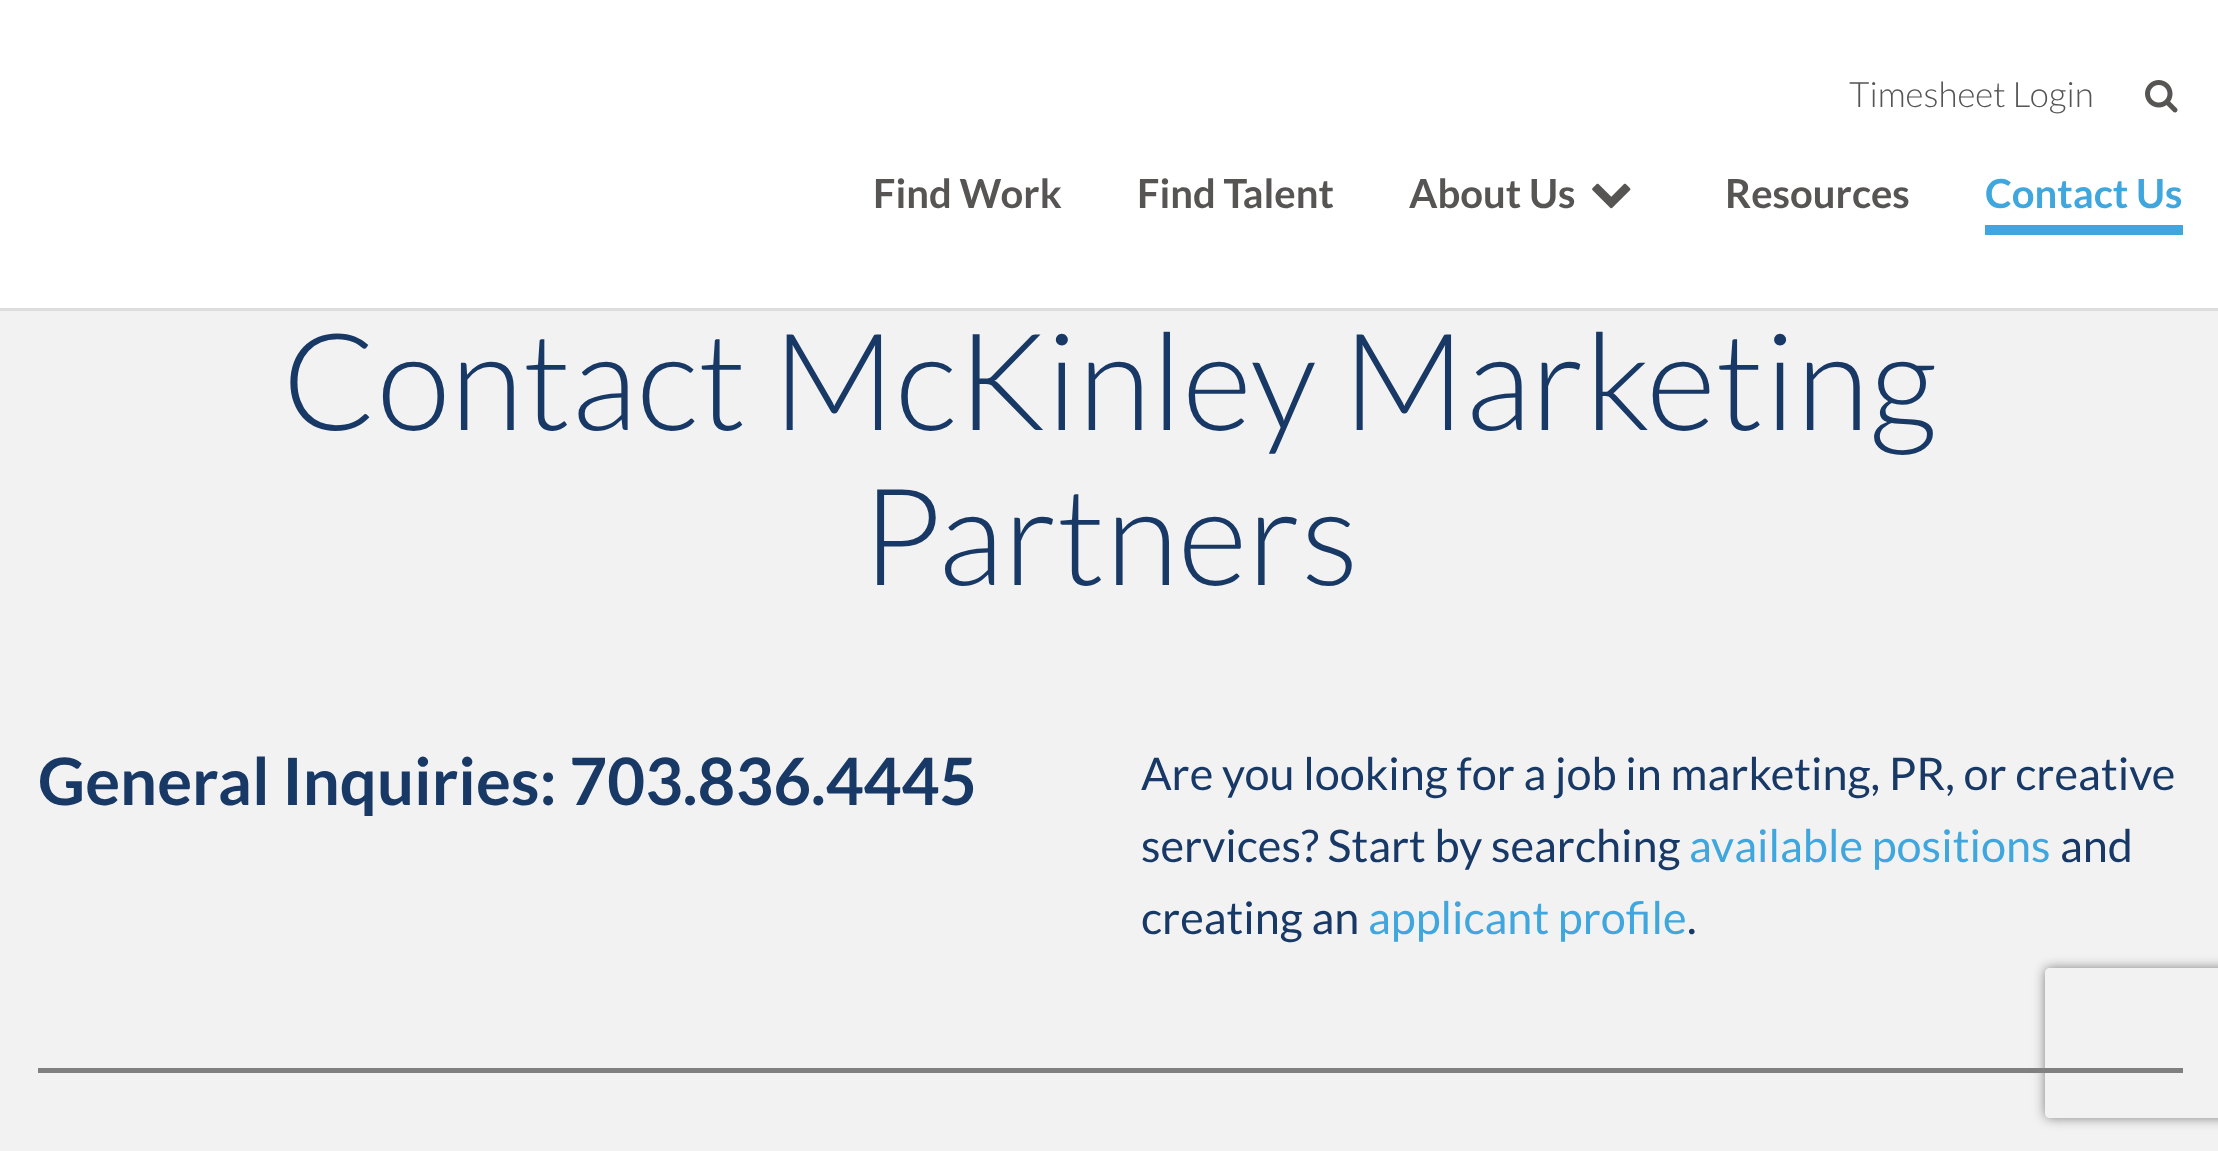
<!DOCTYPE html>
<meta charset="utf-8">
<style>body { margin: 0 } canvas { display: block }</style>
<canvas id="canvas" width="2218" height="1151"></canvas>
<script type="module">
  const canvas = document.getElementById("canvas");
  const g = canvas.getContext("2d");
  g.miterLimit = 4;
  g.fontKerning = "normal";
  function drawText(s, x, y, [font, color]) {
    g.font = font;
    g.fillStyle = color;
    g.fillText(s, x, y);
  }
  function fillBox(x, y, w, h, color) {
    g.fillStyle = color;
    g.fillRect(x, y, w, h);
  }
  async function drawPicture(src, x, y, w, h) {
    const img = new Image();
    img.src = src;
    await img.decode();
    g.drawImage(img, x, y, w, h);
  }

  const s1 = ["300 35px Lato", "#575454"];
  const s2 = ["bold 40px Lato", "#575454"];
  const s3 = ["bold 40px Lato", "#3FA7DD"];
  const s4 = ["300 135px Lato", "#183966"];
  const s5 = ["bold 65.25px Lato", "#183966"];
  const s6 = ["45px Lato", "#183966"];
  const s7 = ["45px Lato", "#3FA7DD"];

  fillBox(0, 0, 2218, 1151, "#F2F2F2");
  fillBox(0, 0, 2218, 308, "#FFFFFF");
  drawText("Timesheet Login", 1849, 107, s1);
  await drawPicture("pic1.png", 2145, 80, 33, 33);
  drawText("Find Work", 873, 208, s2);
  drawText("Find Talent", 1137, 208, s2);
  drawText("About Us", 1409, 208, s2);
  await drawPicture("pic2.png", 1592, 183, 39, 26);
  drawText("Resources", 1725, 208, s2);
  drawText("Contact Us", 1985, 208, s3);
  fillBox(1985, 225, 198, 10, "#3FA7DD");
  fillBox(0, 308, 2218, 3, "#DDDDDD");
  drawText("Contact McKinley Marketing", 282, 430, s4);
  drawText("Partners", 861, 585, s4);
  drawText("General Inquiries: 703.836.4445", 38, 805, s5);
  drawText("Are you looking for a job in marketing, PR, or creative", 1141, 790, s6);
  drawText("services? Start by searching", 1141, 862, s6);
  drawText("available positions", 1689, 862, s7);
  drawText("and", 2060, 862, s6);
  drawText("creating an", 1141, 934, s6);
  drawText("applicant profile", 1368, 934, s7);
  drawText(".", 1687, 934, s6);
  fillBox(38, 1068, 2145, 5, "#808080");
  g.save();
  g.beginPath();
  g.moveTo(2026, 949);
  g.lineTo(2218, 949);
  g.lineTo(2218, 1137);
  g.lineTo(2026, 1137);
  g.closePath();
  g.moveTo(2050, 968);
  g.lineTo(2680, 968);
  g.bezierCurveTo(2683, 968, 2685, 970, 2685, 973);
  g.lineTo(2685, 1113);
  g.bezierCurveTo(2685, 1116, 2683, 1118, 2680, 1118);
  g.lineTo(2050, 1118);
  g.bezierCurveTo(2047, 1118, 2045, 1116, 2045, 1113);
  g.lineTo(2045, 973);
  g.bezierCurveTo(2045, 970, 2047, 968, 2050, 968);
  g.closePath();
  g.clip("evenodd");
  g.filter = "blur(6px)";
  g.beginPath();
  g.roundRect(2045, 968, 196, 150, 5);
  g.fill();
  g.filter = "none";
  g.restore();
</script>
